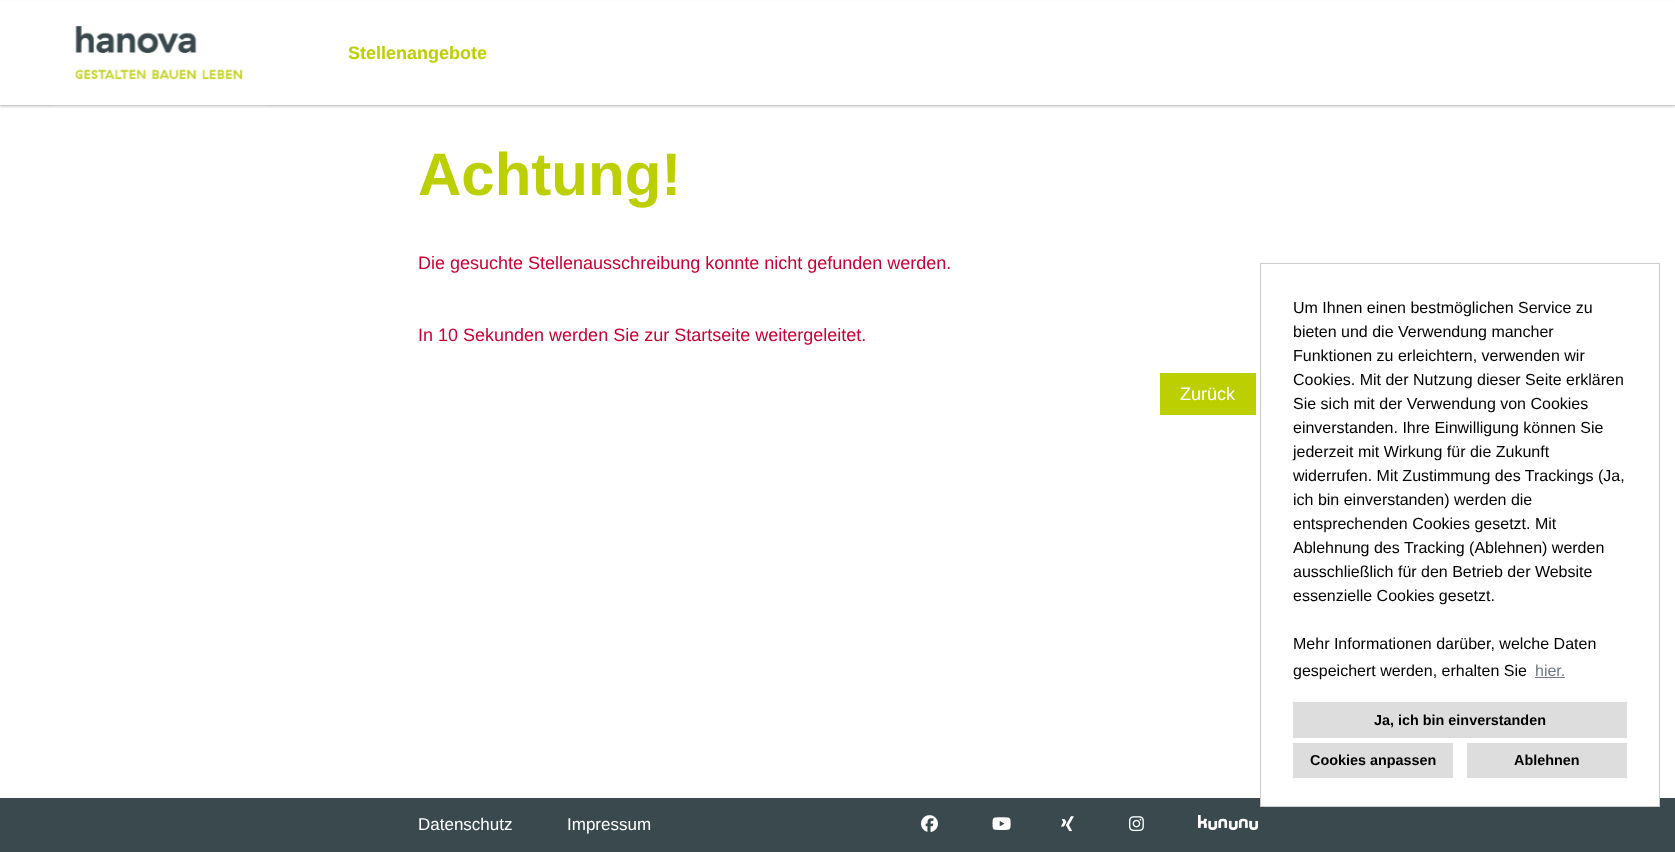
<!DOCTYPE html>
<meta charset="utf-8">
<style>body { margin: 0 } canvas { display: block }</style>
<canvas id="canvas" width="1675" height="852"></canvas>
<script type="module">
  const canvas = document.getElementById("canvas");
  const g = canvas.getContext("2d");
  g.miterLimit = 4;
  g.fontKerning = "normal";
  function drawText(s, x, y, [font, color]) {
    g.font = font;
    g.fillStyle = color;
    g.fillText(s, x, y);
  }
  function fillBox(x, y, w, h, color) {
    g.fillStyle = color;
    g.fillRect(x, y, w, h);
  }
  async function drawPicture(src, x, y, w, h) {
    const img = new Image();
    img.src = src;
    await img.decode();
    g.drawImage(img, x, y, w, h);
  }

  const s1 = ["bold 18px Liberation Sans", "#BCCF00"];
  const s2 = ["bold 60px Liberation Sans", "#BCCF00"];
  const s3 = ["18px Liberation Sans", "#CC0033"];
  const s4 = ["18px Liberation Sans", "#FFFFFF"];
  const s5 = ["17px Liberation Sans", "#FFFFFF"];
  const s6 = ["16px Liberation Sans", "#000000"];
  const s7 = ["16px Liberation Sans", "#6F797F"];
  const s8 = ["bold 14.4px Liberation Sans", "#000000"];

  fillBox(0, 0, 1675, 852, "#FFFFFF");
  g.strokeStyle = "#EBEBEB";
  g.strokeRect(-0.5, -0.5, 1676, 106);
  g.fillStyle = "rgba(0, 0, 0, 0.16)";
  g.filter = "blur(1px)";
  g.beginPath();
  g.rect(0, 2, 1675, 105);
  g.fill();
  g.filter = "none";
  fillBox(0, 1, 1675, 104, "#FFFFFF");
  await drawPicture("pic1.png", 50, 25, 218, 81);
  drawText("Stellenangebote", 348, 59, s1);
  drawText("Achtung!", 418, 195, s2);
  drawText("Die gesuchte Stellenausschreibung konnte nicht gefunden werden.", 418, 269, s3);
  drawText("In 10 Sekunden werden Sie zur Startseite weitergeleitet.", 418, 341, s3);
  fillBox(1160, 373, 96, 42, "#BCCF00");
  drawText("Zurück", 1180, 400, s4);
  fillBox(0, 798, 1675, 54, "#39494D");
  drawText("Datenschutz", 418, 830, s5);
  drawText("Impressum", 567, 830, s5);
  await drawPicture("pic2.png", 921, 815, 17, 17);
  await drawPicture("pic3.png", 992, 817, 19, 13);
  await drawPicture("pic4.png", 1061, 816, 13, 16);
  await drawPicture("pic5.png", 1129, 816, 15, 16);
  await drawPicture("pic6.png", 1198, 815, 60, 15);
  fillBox(1261, 798, 398, 8, "#FFFFFF");
  g.strokeStyle = "#CCCCCC";
  g.strokeRect(1260.5, 263.5, 399, 543);
  drawText("Um Ihnen einen bestmöglichen Service zu", 1293, 313, s6);
  drawText("bieten und die Verwendung mancher", 1293, 337, s6);
  drawText("Funktionen zu erleichtern, verwenden wir", 1293, 361, s6);
  drawText("Cookies. Mit der Nutzung dieser Seite erklären", 1293, 385, s6);
  drawText("Sie sich mit der Verwendung von Cookies", 1293, 409, s6);
  drawText("einverstanden. Ihre Einwilligung können Sie", 1293, 433, s6);
  drawText("jederzeit mit Wirkung für die Zukunft", 1293, 457, s6);
  drawText("widerrufen. Mit Zustimmung des Trackings (Ja,", 1293, 481, s6);
  drawText("ich bin einverstanden) werden die", 1293, 505, s6);
  drawText("entsprechenden Cookies gesetzt. Mit", 1293, 529, s6);
  drawText("Ablehnung des Tracking (Ablehnen) werden", 1293, 553, s6);
  drawText("ausschließlich für den Betrieb der Website", 1293, 577, s6);
  drawText("essenzielle Cookies gesetzt.", 1293, 601, s6);
  drawText("Mehr Informationen darüber, welche Daten", 1293, 649, s6);
  drawText("gespeichert werden, erhalten Sie", 1293, 676, s6);
  drawText("hier.", 1535, 676, s7);
  fillBox(1535, 677, 30, 1, "#6F797F");
  fillBox(1293, 702, 334, 36, "#DDDDDD");
  drawText("Ja, ich bin einverstanden", 1374, 725, s8);
  fillBox(1293, 743, 160, 35, "#DDDDDD");
  drawText("Cookies anpassen", 1310, 765, s8);
  fillBox(1467, 743, 160, 35, "#DDDDDD");
  drawText("Ablehnen", 1514, 765, s8);
</script>
